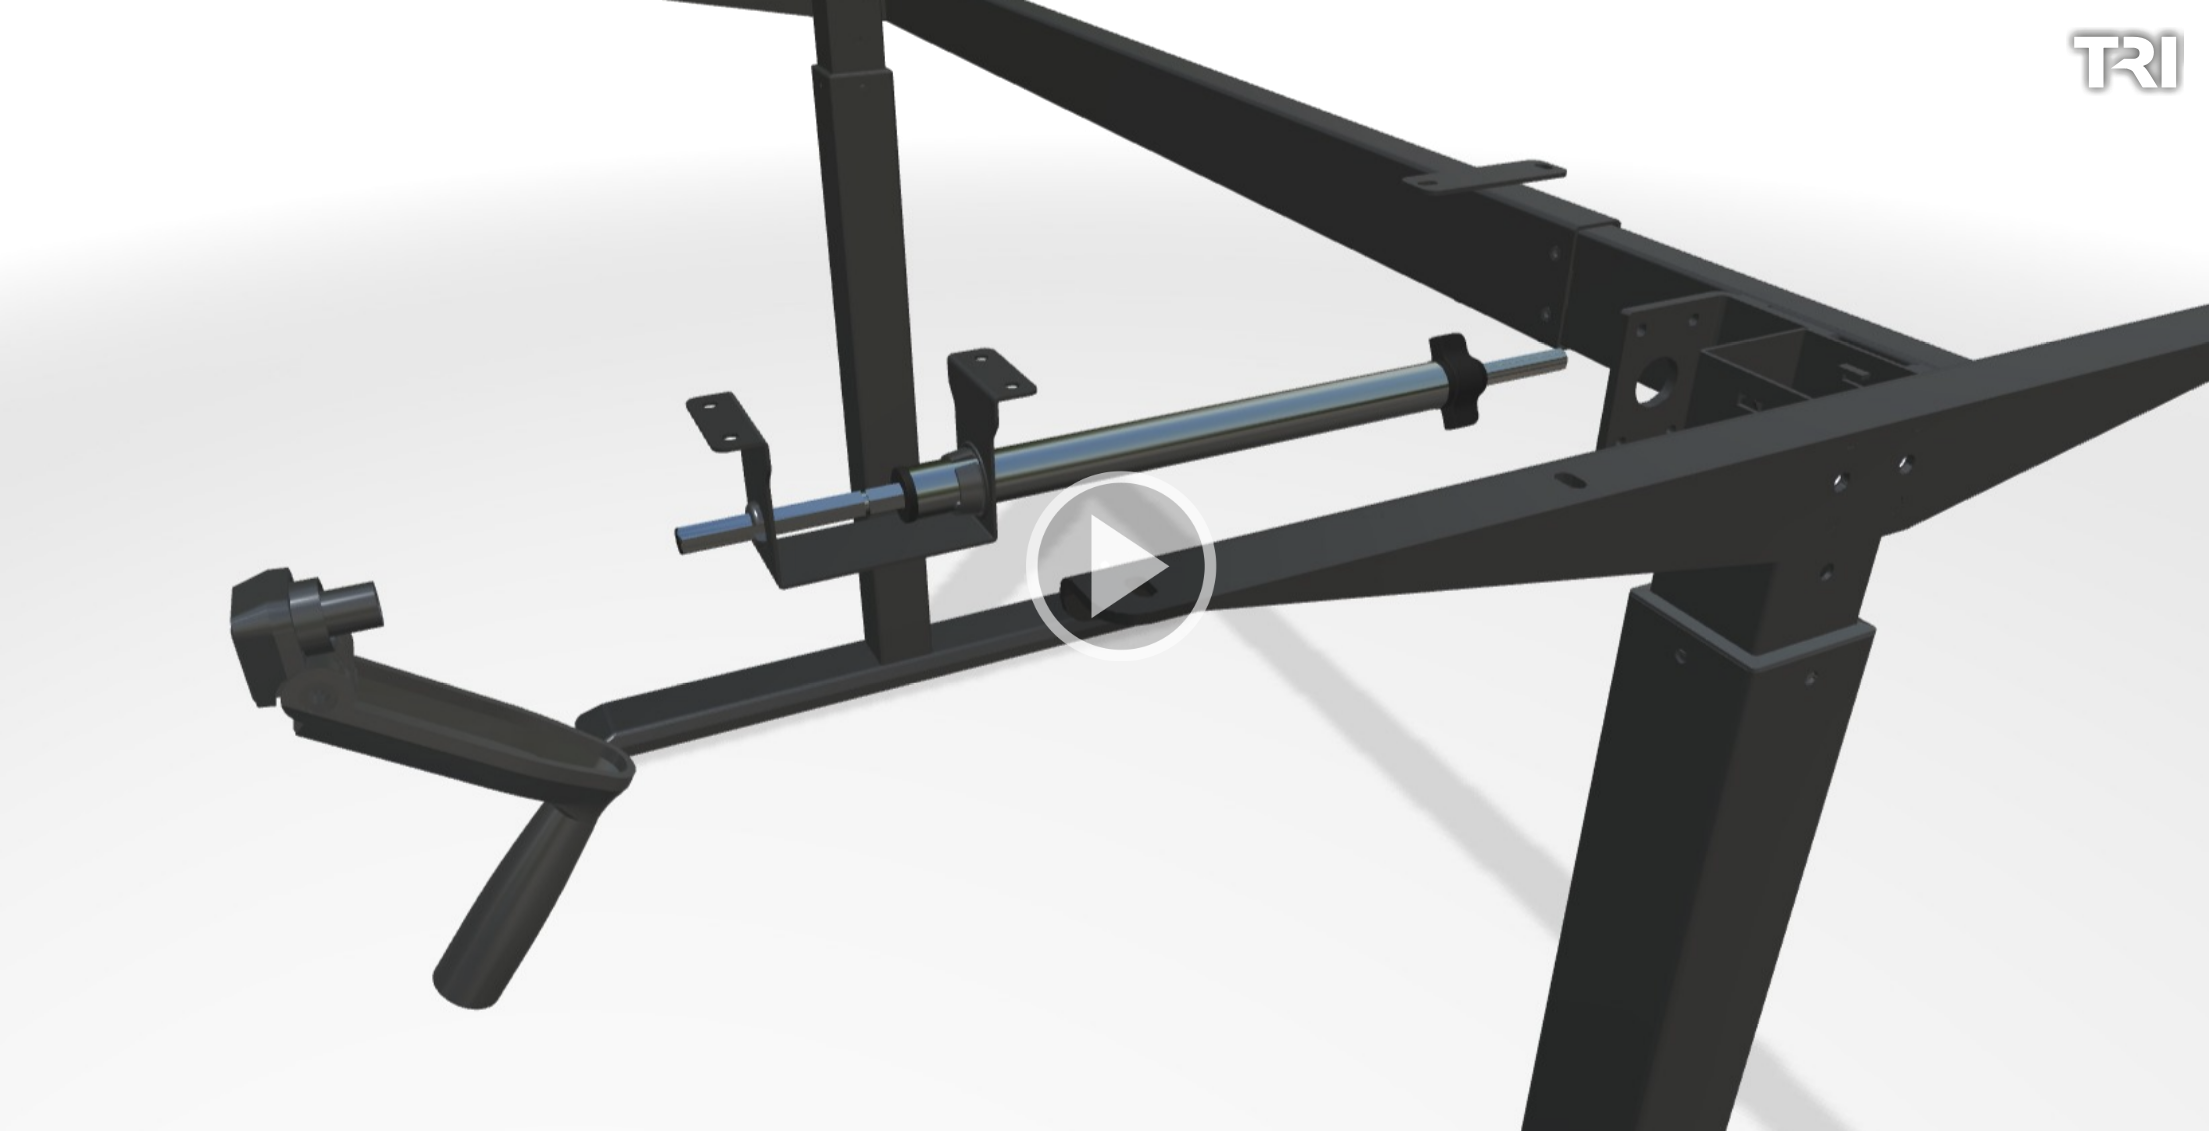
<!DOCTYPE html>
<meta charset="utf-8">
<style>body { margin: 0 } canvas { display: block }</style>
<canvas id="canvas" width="2209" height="1131"></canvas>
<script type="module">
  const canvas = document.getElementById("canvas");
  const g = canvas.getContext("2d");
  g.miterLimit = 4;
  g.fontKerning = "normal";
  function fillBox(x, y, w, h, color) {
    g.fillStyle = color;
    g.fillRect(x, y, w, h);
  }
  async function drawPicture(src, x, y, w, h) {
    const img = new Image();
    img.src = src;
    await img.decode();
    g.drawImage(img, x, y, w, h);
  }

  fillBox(0, 0, 2209, 1131, "#FFFFFF");
  await drawPicture("pic1.png", 0, 0, 2209, 1131);
  await drawPicture("pic2.png", 2066, 27, 118, 69);
  await drawPicture("pic3.png", 1026, 470, 191, 191);
</script>
